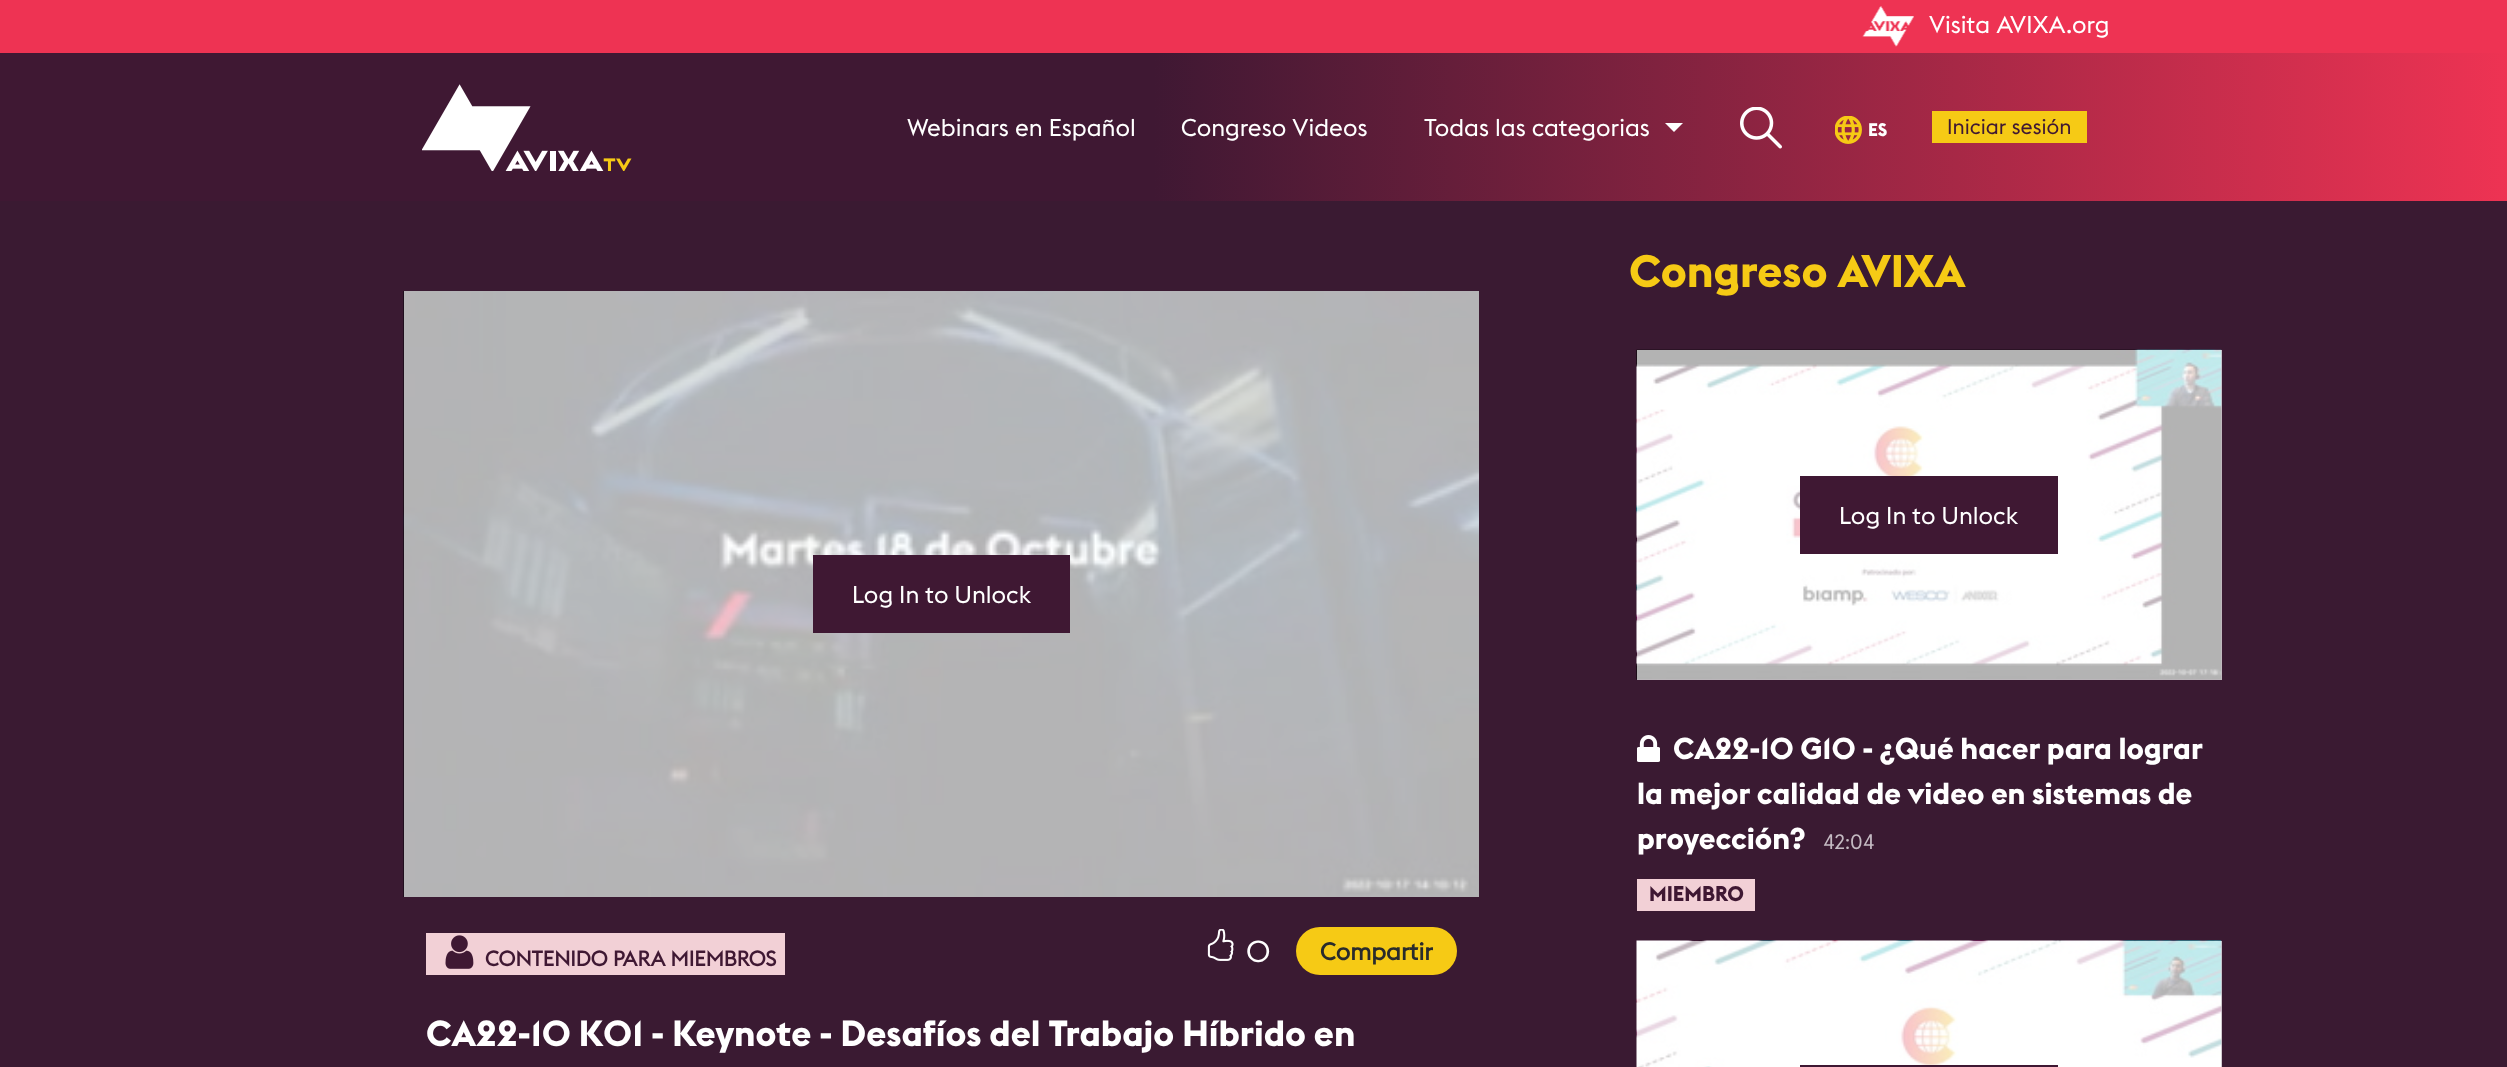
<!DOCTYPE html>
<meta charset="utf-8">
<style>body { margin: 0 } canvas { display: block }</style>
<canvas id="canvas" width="2507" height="1067"></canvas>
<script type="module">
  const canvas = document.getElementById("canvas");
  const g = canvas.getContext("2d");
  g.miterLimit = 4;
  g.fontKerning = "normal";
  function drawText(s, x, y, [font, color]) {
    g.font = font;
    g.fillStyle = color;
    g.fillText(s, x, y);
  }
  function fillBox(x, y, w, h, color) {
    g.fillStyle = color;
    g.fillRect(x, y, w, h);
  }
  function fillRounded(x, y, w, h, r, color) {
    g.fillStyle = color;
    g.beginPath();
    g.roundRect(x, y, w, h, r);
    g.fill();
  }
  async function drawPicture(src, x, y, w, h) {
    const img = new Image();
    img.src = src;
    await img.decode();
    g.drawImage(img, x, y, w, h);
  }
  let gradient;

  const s1 = ["24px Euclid", "#FFFFFF"];
  const s2 = ["bold 18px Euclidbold", "#FFFFFF"];
  const s3 = ["21px Euclid", "#3F1833"];
  const s4 = ["bold 21px Euclid", "#3F1833"];
  const s5 = ["30px Euclid", "#FFFFFF"];
  const s6 = ["bold 24px Euclid", "#292B2C"];
  const s7 = ["bold 36px Euclidbold", "#FFFFFF"];
  const s8 = ["bold 45px Euclidbold", "#F6CA15"];
  const s9 = ["bold 30px Euclidbold", "#FFFFFF"];
  const s10 = ["21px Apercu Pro", "#C4BAC2"];
  const s11 = ["bold 21px Euclidbold", "#3F1833"];

  fillBox(0, 0, 2507, 1067, "#3A1A32");
  fillBox(0, 0, 2507, 53, "#EE3353");
  await drawPicture("pic1.png", 1862, 6, 52, 41);
  drawText("Visita AVIXA.org", 1929, 33, s1);
  gradient = g.createLinearGradient(0, 127, 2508, 127);
  gradient.addColorStop(0.46, "#3F1833");
  gradient.addColorStop(1, "#EE3353");
  g.fillStyle = gradient;
  g.fillRect(0, 53, 2507, 148);
  await drawPicture("pic2.png", 422, 84, 210, 87);
  drawText("Webinars en Español", 907, 136, s1);
  drawText("Congreso Videos", 1181, 136, s1);
  drawText("Todas las categorias", 1424, 136, s1);
  g.beginPath();
  g.moveTo(1665, 123);
  g.lineTo(1683, 123);
  g.lineTo(1674, 132);
  g.closePath();
  g.fill();
  await drawPicture("pic3.png", 1740, 107, 42, 42);
  await drawPicture("pic4.png", 1835, 116, 27, 28);
  drawText("ES", 1868, 136, s2);
  fillBox(1932, 111, 155, 32, "#F6CA15");
  drawText("Iniciar sesión", 1947, 134, s3);
  fillBox(2221, 941, 1, 126, "#C4BAC2");
  fillBox(1637, 350, 585, 330, "#C4BAC2");
  await drawPicture("pic5.png", 403, 291, 1076, 606);
  fillBox(813, 555, 257, 78, "#3F1833");
  drawText("Log In to Unlock", 852, 603, s1);
  fillBox(426, 933, 359, 42, "#F2D0D6");
  await drawPicture("pic6.png", 445, 935, 29, 34);
  drawText("CONTENIDO PARA MIEMBROS", 485, 966, s4);
  await drawPicture("pic7.png", 1207, 929, 27, 32);
  drawText("0", 1246, 962, s5);
  fillRounded(1296, 927, 161, 48, 24, "#F6CA15");
  drawText("Compartir", 1320, 960, s6);
  drawText("CA22-10 K01 - Keynote - Desafíos del Trabajo Híbrido en", 426, 1046, s7);
  drawText("Congreso AVIXA", 1629, 287, s8);
  await drawPicture("pic8.png", 1636, 349, 586, 331);
  fillBox(1800, 476, 258, 78, "#3F1833");
  drawText("Log In to Unlock", 1839, 524, s1);
  await drawPicture("pic9.png", 1637, 735, 23, 27);
  drawText("CA22-10 G10 - ¿Qué hacer para lograr", 1673, 759, s9);
  drawText("la mejor calidad de video en sistemas de", 1637, 804, s9);
  drawText("proyección?", 1637, 849, s9);
  drawText("42:04", 1823, 849, s10);
  fillBox(1637, 879, 118, 32, "#F2D0D6");
  drawText("MIEMBRO", 1649, 901, s11);
  await drawPicture("pic10.png", 1636, 940, 586, 127);
  fillBox(1800, 1065, 258, 2, "#3F1833");
</script>
